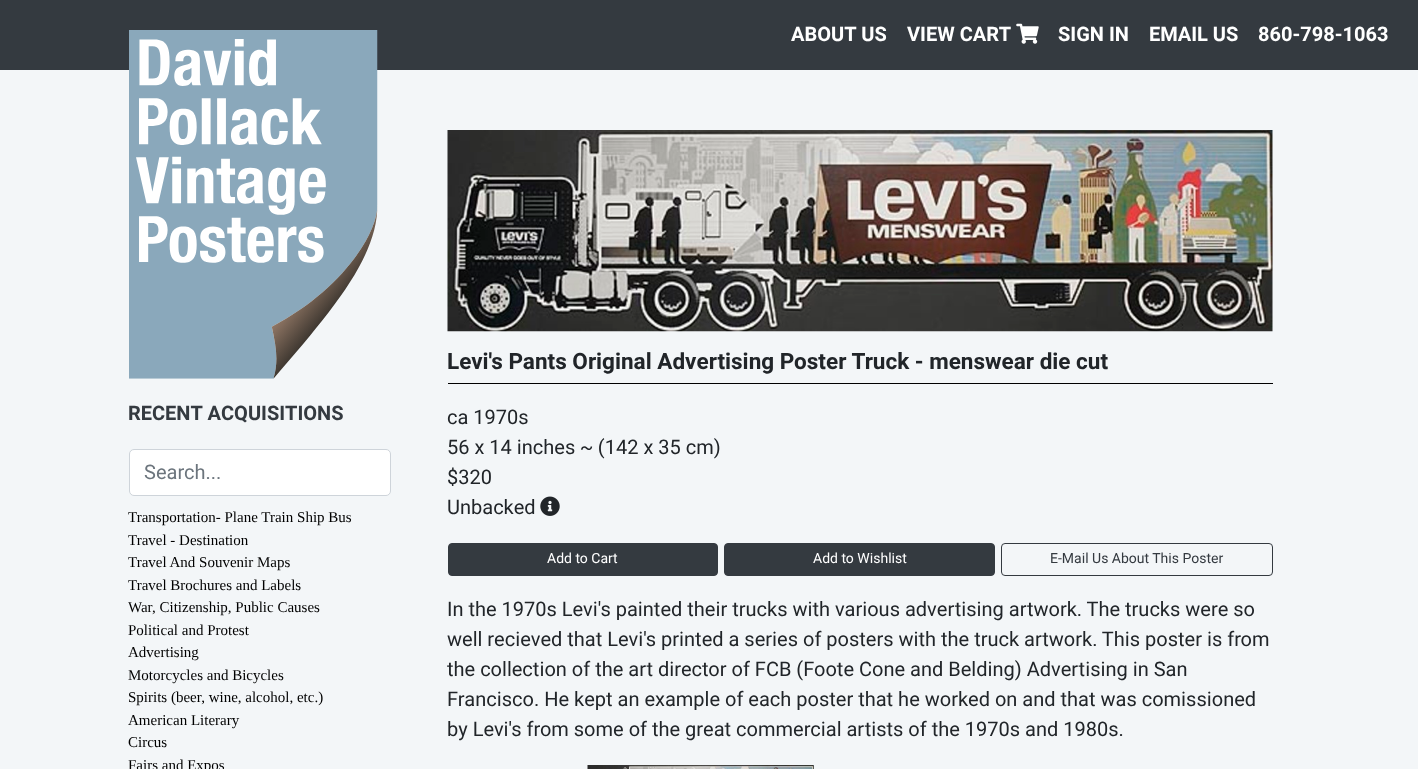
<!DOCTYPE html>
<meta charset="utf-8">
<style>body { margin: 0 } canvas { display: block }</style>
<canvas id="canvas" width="1418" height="769"></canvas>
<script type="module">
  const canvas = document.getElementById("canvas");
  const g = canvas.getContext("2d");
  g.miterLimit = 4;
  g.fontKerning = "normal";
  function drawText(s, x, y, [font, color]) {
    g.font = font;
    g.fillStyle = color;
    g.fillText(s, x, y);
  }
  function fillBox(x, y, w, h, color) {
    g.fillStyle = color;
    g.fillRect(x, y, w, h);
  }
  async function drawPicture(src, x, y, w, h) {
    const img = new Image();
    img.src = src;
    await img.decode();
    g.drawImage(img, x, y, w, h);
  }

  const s1 = ["bold 20px Heebo", "#FFFFFF"];
  const s2 = ["bold 20px Heebo", "#343A40"];
  const s3 = ["20px Heebo", "#6C757D"];
  const s4 = ["15px Liberation Serif", "#000000"];
  const s5 = ["bold 22.5px Heebo", "#212529"];
  const s6 = ["20px Heebo", "#212529"];
  const s7 = ["14px Heebo", "#FFFFFF"];
  const s8 = ["14px Heebo", "#343A40"];

  fillBox(0, 0, 1418, 769, "#F3F6F8");
  fillBox(0, 0, 1418, 70, "#343A40");
  drawText("ABOUT US", 791, 41, s1);
  drawText("VIEW CART", 907, 41, s1);
  await drawPicture("pic1.png", 1016, 23, 23, 21);
  drawText("SIGN IN", 1058, 41, s1);
  drawText("EMAIL US", 1149, 41, s1);
  drawText("860-798-1063", 1258, 41, s1);
  await drawPicture("pic2.png", 129, 30, 249, 349);
  drawText("RECENT ACQUISITIONS", 128, 420, s2);
  g.fillStyle = "#FFFFFF";
  g.beginPath();
  g.roundRect(129.5, 449.5, 261, 46, 4.5);
  g.fill();
  g.strokeStyle = "#CED4DA";
  g.stroke();
  drawText("Search...", 144, 479, s3);
  drawText("Transportation- Plane Train Ship Bus", 128, 522, s4);
  drawText("Travel - Destination", 128, 545, s4);
  drawText("Travel And Souvenir Maps", 128, 567, s4);
  drawText("Travel Brochures and Labels", 128, 590, s4);
  drawText("War, Citizenship, Public Causes", 128, 612, s4);
  drawText("Political and Protest", 128, 635, s4);
  drawText("Advertising", 128, 657, s4);
  drawText("Motorcycles and Bicycles", 128, 680, s4);
  drawText("Spirits (beer, wine, alcohol, etc.)", 128, 702, s4);
  drawText("American Literary", 128, 725, s4);
  drawText("Circus", 128, 747, s4);
  drawText("Fairs and Expos", 128, 770, s4);
  await drawPicture("pic3.png", 447, 130, 826, 202);
  fillBox(448, 383, 825, 1, "#000000");
  drawText("Levi's Pants Original Advertising Poster Truck - menswear die cut", 447, 369, s5);
  drawText("ca 1970s", 447, 424, s6);
  drawText("56 x 14 inches ~ (142 x 35 cm)", 447, 454, s6);
  drawText("$320", 447, 484, s6);
  drawText("Unbacked", 447, 514, s6);
  await drawPicture("pic4.png", 540, 496, 20, 20);
  g.fillStyle = "#343A40";
  g.beginPath();
  g.roundRect(448.5, 543.5, 269, 32, 3.5);
  g.fill();
  g.strokeStyle = "#343A40";
  g.stroke();
  drawText("Add to Cart", 547, 563, s7);
  g.fillStyle = "#343A40";
  g.beginPath();
  g.roundRect(724.5, 543.5, 270, 32, 3.5);
  g.fill();
  g.stroke();
  drawText("Add to Wishlist", 813, 563, s7);
  g.beginPath();
  g.roundRect(1001.5, 543.5, 271, 32, 3.5);
  g.stroke();
  drawText("E-Mail Us About This Poster", 1050, 563, s8);
  drawText("In the 1970s Levi's painted their trucks with various advertising artwork. The trucks were so", 447, 616, s6);
  drawText("well recieved that Levi's printed a series of posters with the truck artwork. This poster is from", 447, 646, s6);
  drawText("the collection of the art director of FCB (Foote Cone and Belding) Advertising in San", 447, 676, s6);
  drawText("Francisco. He kept an example of each poster that he worked on and that was comissioned", 447, 706, s6);
  drawText("by Levi's from some of the great commercial artists of the 1970s and 1980s.", 447, 736, s6);
  await drawPicture("pic5.png", 587, 765, 227, 4);
</script>
